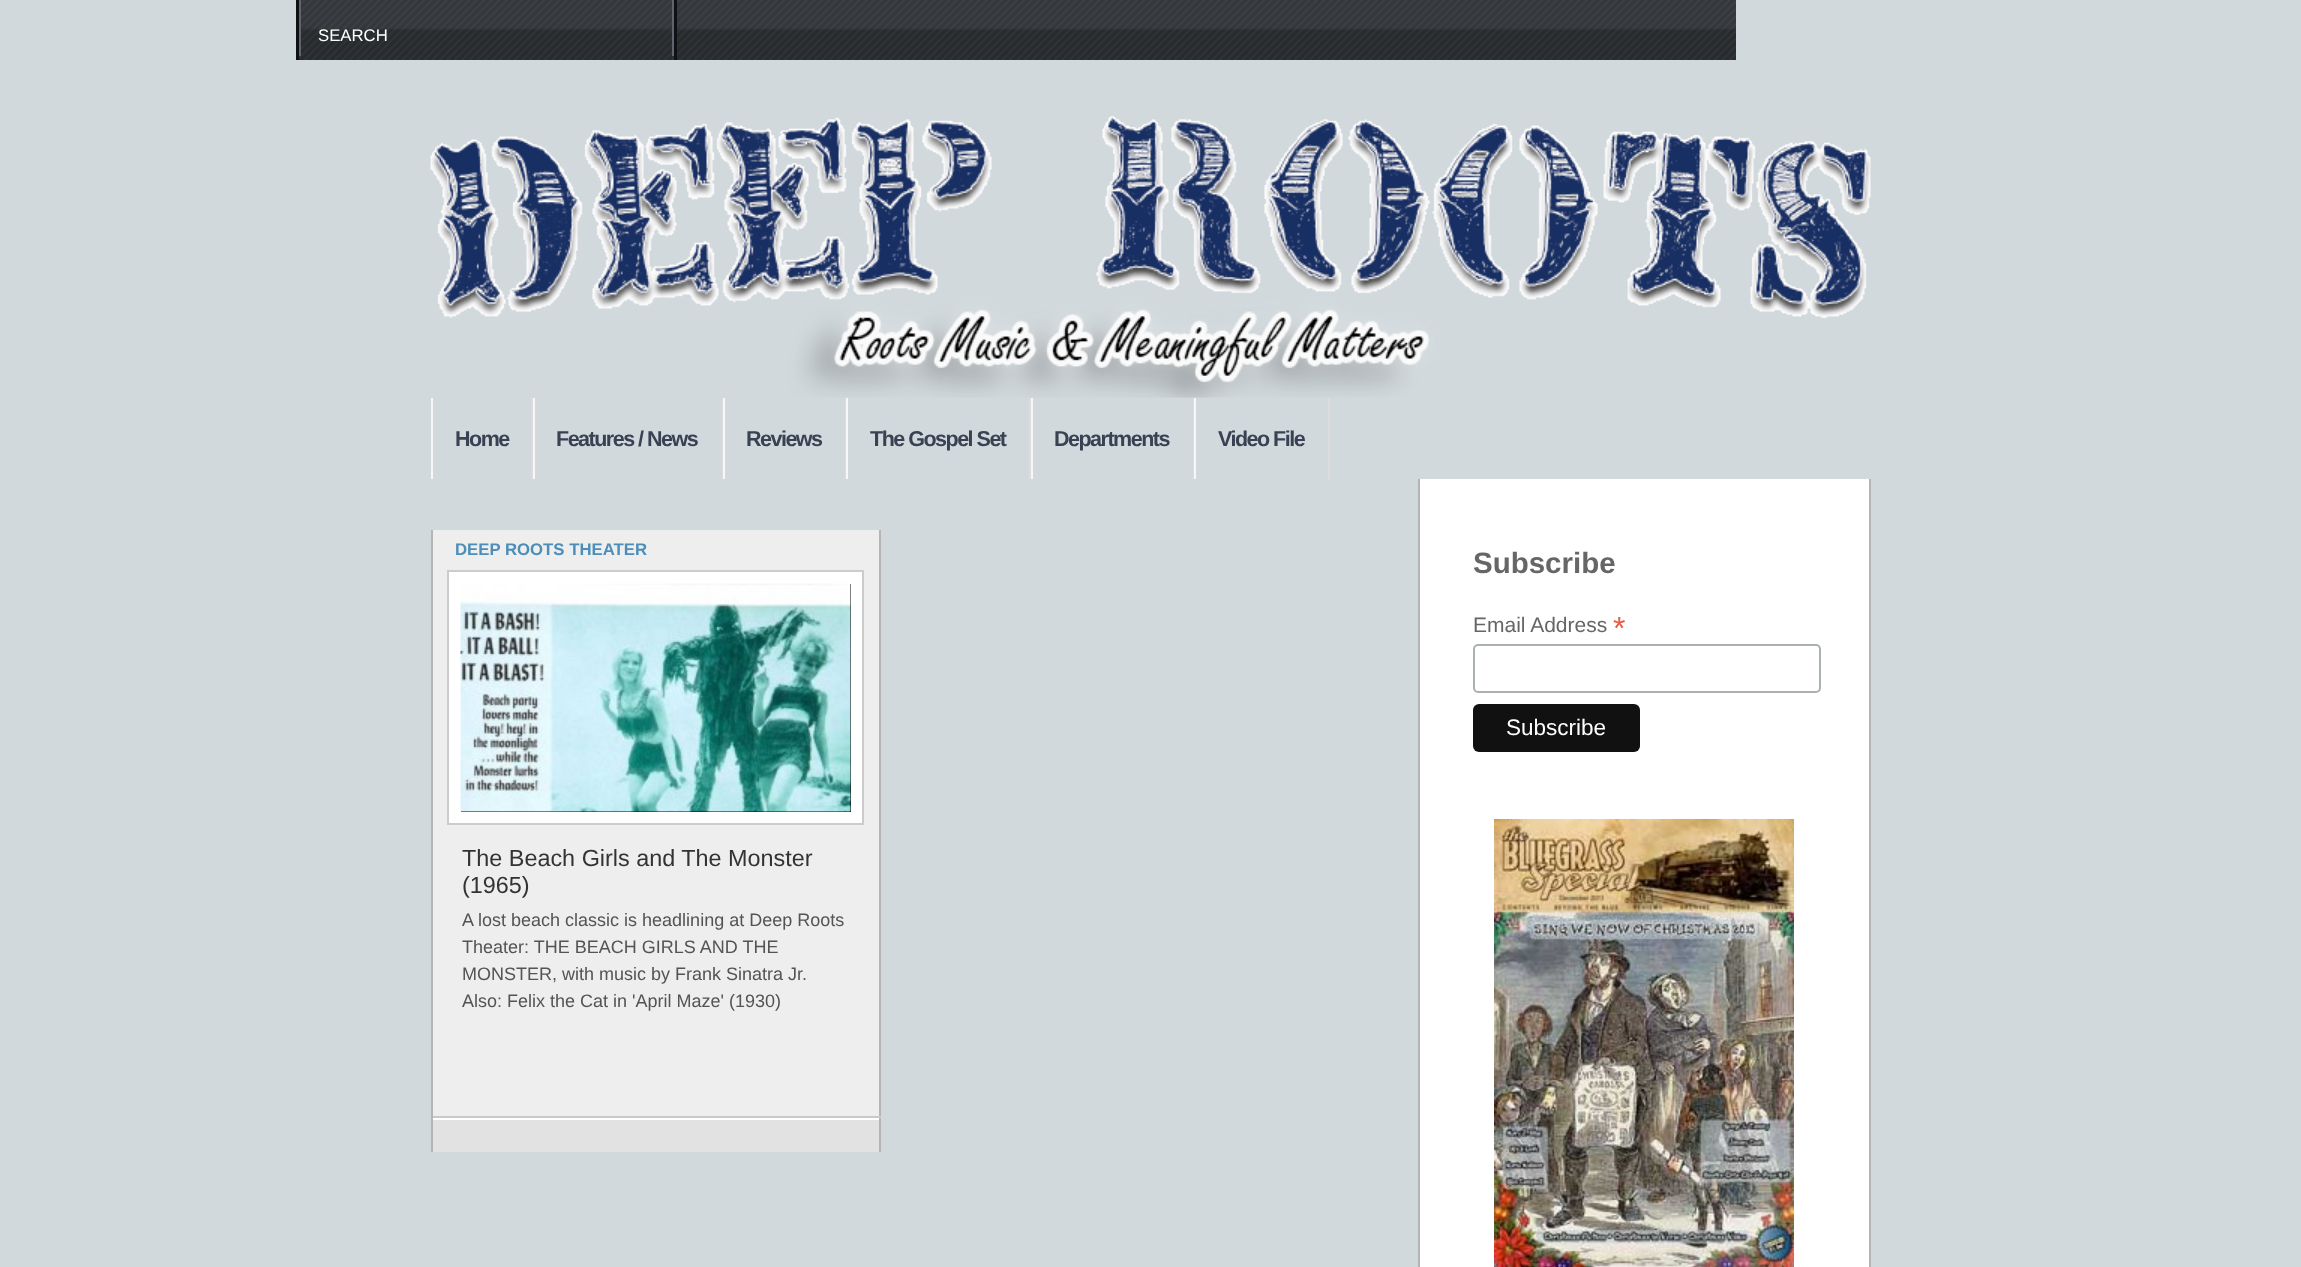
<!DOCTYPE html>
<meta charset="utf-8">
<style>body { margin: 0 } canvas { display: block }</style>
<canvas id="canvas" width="2301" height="1267"></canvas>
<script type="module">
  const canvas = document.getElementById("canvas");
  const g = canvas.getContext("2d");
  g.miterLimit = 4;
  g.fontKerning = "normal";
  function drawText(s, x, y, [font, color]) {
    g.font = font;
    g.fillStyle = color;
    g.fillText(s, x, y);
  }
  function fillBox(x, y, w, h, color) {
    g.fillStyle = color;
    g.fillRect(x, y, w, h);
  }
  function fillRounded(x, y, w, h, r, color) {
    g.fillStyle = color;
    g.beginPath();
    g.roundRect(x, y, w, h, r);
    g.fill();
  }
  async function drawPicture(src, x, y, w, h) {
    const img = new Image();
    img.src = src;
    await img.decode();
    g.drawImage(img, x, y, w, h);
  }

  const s1 = ["16.75px Liberation Sans", "#FFFFFF"];
  const s2 = ["bold 21.5px Liberation Sans", "#394253"];
  const s3 = ["bold 16.75px Liberation Sans", "#4C8EB9"];
  const s4 = ["23.4px Liberation Sans", "#333333"];
  const s5 = ["18px Liberation Sans", "#545454"];
  const s6 = ["bold 29.5px Liberation Sans", "#666666"];
  const s7 = ["21px Liberation Sans", "#666666"];
  const s8 = ["32px Liberation Sans", "#E85C41"];
  const s9 = ["22.5px Liberation Sans", "#FFFFFF"];

  fillBox(0, 0, 2301, 1267, "#D1D9DD");
  await drawPicture("pic1.png", 299, 0, 1437, 60);
  fillBox(674, 0, 3, 60, "#101112");
  fillBox(296, 0, 3, 60, "#101112");
  fillBox(672, 0, 2, 56, "#5F656E");
  fillBox(299, 0, 2, 56, "#5F656E");
  drawText("SEARCH", 318, 41, s1);
  await drawPicture("pic2.png", 430, 116, 1441, 282);
  fillBox(531, 398, 2, 81, "#DCDCDC");
  fillBox(431, 398, 2, 81, "#F7F7F7");
  g.letterSpacing = "-1.5px";
  drawText("Home", 455, 446, s2);
  fillBox(722, 398, 1, 81, "#DCDCDC");
  fillBox(533, 398, 2, 81, "#F7F7F7");
  drawText("Features / News", 556, 446, s2);
  fillBox(845, 398, 1, 81, "#DCDCDC");
  fillBox(723, 398, 2, 81, "#F7F7F7");
  drawText("Reviews", 746, 446, s2);
  fillBox(1029, 398, 2, 81, "#DCDCDC");
  fillBox(846, 398, 2, 81, "#F7F7F7");
  drawText("The Gospel Set", 870, 446, s2);
  fillBox(1193, 398, 1, 81, "#DCDCDC");
  fillBox(1031, 398, 2, 81, "#F7F7F7");
  drawText("Departments", 1054, 446, s2);
  fillBox(1328, 398, 2, 81, "#DCDCDC");
  fillBox(1194, 398, 2, 81, "#F7F7F7");
  drawText("Video File", 1218, 446, s2);
  fillBox(433, 530, 446, 586, "#EEEEEE");
  fillBox(879, 530, 2, 588, "#B5B5B5");
  fillBox(431, 1116, 450, 2, "#C9C9C9");
  fillBox(431, 530, 2, 588, "#B5B5B5");
  g.letterSpacing = "0px";
  drawText("DEEP ROOTS THEATER", 455, 555, s3);
  g.fillStyle = "#FFFFFF";
  g.beginPath();
  g.rect(448, 571, 415, 253);
  g.fill();
  g.strokeStyle = "#CCCCCC";
  g.lineWidth = 2;
  g.stroke();
  fillBox(461, 584, 390, 228, "#000000");
  await drawPicture("pic3.png", 460, 583, 391, 229);
  drawText("The Beach Girls and The Monster", 462, 866, s4);
  drawText("(1965)", 462, 893, s4);
  drawText("A lost beach classic is headlining at Deep Roots", 462, 926, s5);
  drawText("Theater: THE BEACH GIRLS AND THE", 462, 953, s5);
  drawText("MONSTER, with music by Frank Sinatra Jr.", 462, 980, s5);
  drawText("Also: Felix the Cat in 'April Maze' (1930)", 462, 1007, s5);
  fillBox(433, 1120, 446, 32, "#E2E2E2");
  fillBox(431, 1118, 450, 2, "#FFFFFF");
  fillBox(879, 1118, 2, 34, "#B5B5B5");
  fillBox(431, 1118, 2, 34, "#B5B5B5");
  fillBox(1420, 479, 449, 788, "#FFFFFF");
  fillBox(1869, 479, 2, 788, "#B5B5B5");
  fillBox(1418, 479, 2, 788, "#B5B5B5");
  drawText("Subscribe", 1473, 573, s6);
  drawText("Email Address", 1473, 632, s7);
  drawText("*", 1613, 639, s8);
  g.beginPath();
  g.roundRect(1474, 645, 346, 47, 4);
  g.strokeStyle = "#ABB0B2";
  g.stroke();
  fillRounded(1473, 704, 167, 48, 6, "#111111");
  drawText("Subscribe", 1506, 735, s9);
  await drawPicture("pic4.png", 1494, 819, 300, 448);
</script>
